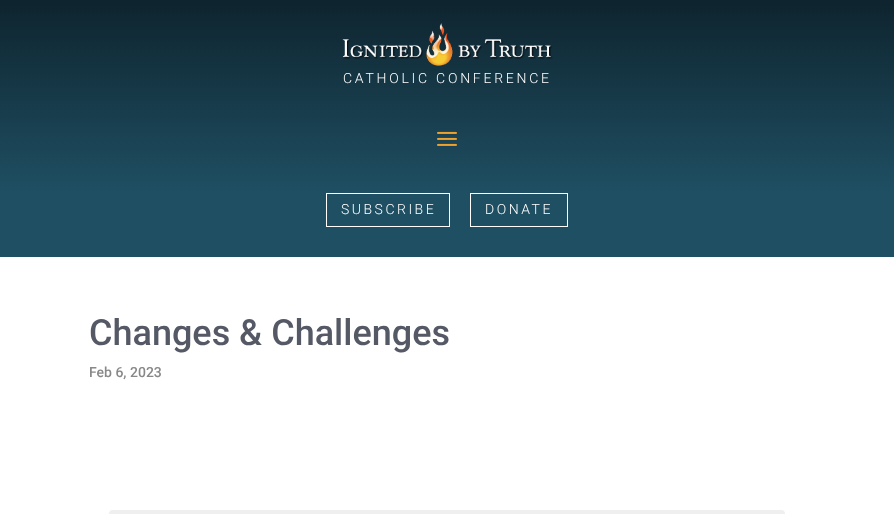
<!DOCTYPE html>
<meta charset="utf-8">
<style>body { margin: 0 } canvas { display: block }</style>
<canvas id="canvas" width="894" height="514"></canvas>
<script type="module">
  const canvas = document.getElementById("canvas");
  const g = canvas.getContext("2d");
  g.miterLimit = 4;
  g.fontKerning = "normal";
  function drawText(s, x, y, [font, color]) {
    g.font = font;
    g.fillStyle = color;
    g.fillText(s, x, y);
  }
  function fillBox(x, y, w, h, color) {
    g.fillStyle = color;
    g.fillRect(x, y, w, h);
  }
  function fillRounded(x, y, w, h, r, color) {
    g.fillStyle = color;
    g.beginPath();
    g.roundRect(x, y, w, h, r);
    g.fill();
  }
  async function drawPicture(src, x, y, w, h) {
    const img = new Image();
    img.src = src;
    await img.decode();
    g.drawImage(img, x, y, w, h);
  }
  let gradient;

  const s1 = ["300 14px Roboto", "#FFFFFF"];
  const s2 = ["500 36px Roboto", "#555966"];
  const s3 = ["500 14px Roboto", "#888888"];

  fillBox(0, 0, 894, 514, "#FFFFFF");
  gradient = g.createLinearGradient(447, 0, 447, 257);
  gradient.addColorStop(0, "#0E242E");
  gradient.addColorStop(0.75, "#1F4F63");
  g.fillStyle = gradient;
  g.fillRect(0, 0, 894, 257);
  await drawPicture("pic1.png", 342, 23, 211, 43);
  g.letterSpacing = "2.75px";
  drawText("CATHOLIC CONFERENCE", 343, 83, s1);
  await drawPicture("pic2.png", 437, 131, 20, 15);
  g.strokeStyle = "#FFFFFF";
  g.strokeRect(326.5, 193.5, 123, 33);
  g.letterSpacing = "2.5px";
  drawText("SUBSCRIBE", 341, 214, s1);
  g.strokeRect(470.5, 193.5, 97, 33);
  drawText("DONATE", 485, 214, s1);
  g.letterSpacing = "0px";
  drawText("Changes & Challenges", 89, 345, s2);
  drawText("Feb 6, 2023", 89, 377, s3);
  fillRounded(109, 510, 676, 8, 4, "#EFEFF0");
</script>
